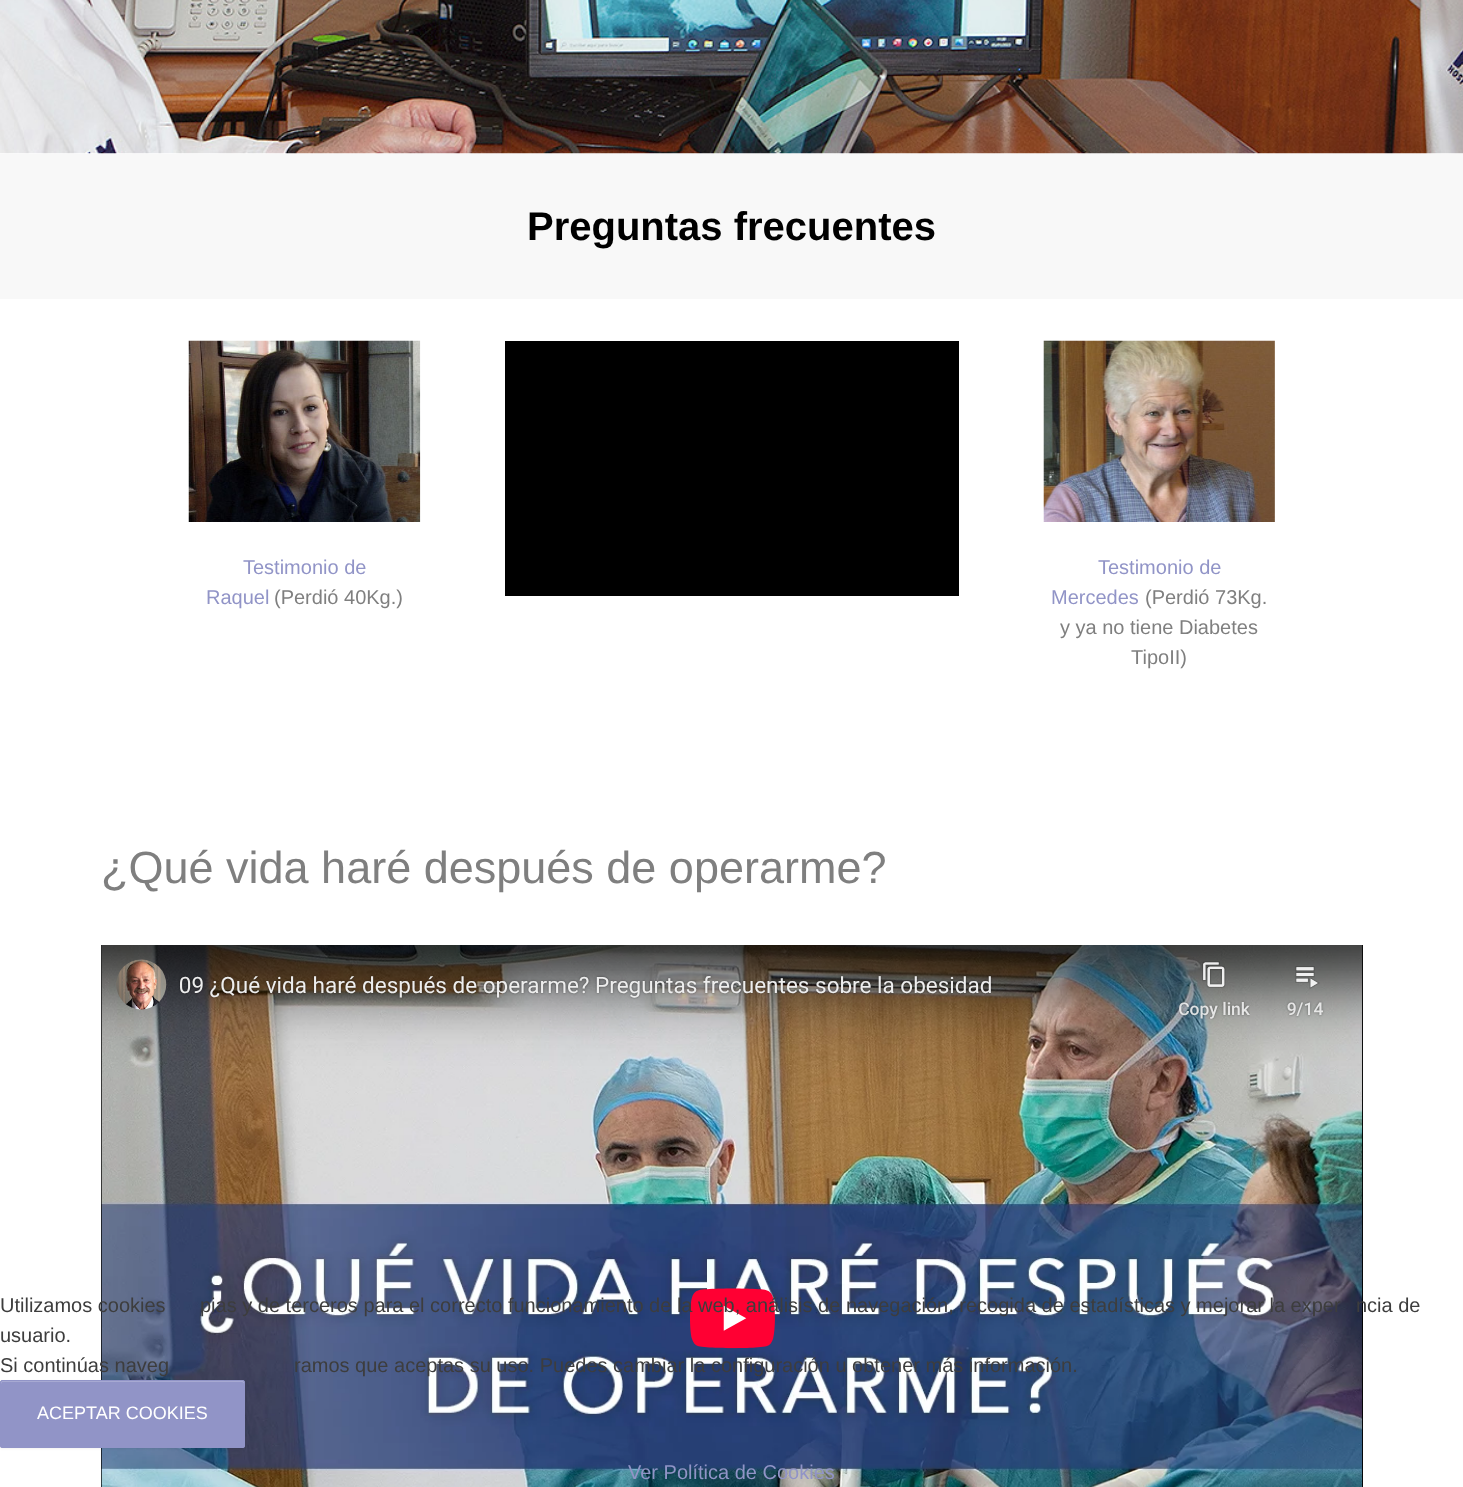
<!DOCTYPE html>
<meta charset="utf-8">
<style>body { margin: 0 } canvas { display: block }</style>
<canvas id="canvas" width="1463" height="1487"></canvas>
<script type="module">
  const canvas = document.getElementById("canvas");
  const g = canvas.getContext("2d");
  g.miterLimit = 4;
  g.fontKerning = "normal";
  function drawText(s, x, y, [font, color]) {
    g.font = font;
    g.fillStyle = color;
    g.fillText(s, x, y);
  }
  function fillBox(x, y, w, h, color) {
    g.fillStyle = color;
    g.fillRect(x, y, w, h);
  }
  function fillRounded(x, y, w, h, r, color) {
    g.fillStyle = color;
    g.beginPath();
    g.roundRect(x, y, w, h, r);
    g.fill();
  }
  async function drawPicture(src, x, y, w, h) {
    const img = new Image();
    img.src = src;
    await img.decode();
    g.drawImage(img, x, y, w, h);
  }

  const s1 = ["bold 40px Liberation Sans", "#000000"];
  const s2 = ["20px Liberation Sans", "#9194C7"];
  const s3 = ["20px Liberation Sans", "#7F7F7F"];
  const s4 = ["45px Liberation Sans", "#7F7F7F"];
  const s5 = ["20px Liberation Sans", "#3D3D3D"];
  const s6 = ["18px Liberation Sans", "#FFFFFF"];

  fillBox(0, 0, 1463, 1487, "#FFFFFF");
  await drawPicture("pic1.png", 0, 0, 1463, 154);
  fillBox(0, 154, 1463, 145, "#F8F8F8");
  drawText("Preguntas frecuentes", 527, 240, s1);
  await drawPicture("pic2.png", 188, 340, 233, 182);
  drawText("Testimonio de", 243, 574, s2);
  drawText("Raquel", 206, 604, s2);
  drawText("(Perdió 40Kg.)", 274, 604, s3);
  fillBox(505, 341, 454, 255, "#000000");
  await drawPicture("pic3.png", 1043, 340, 232, 182);
  drawText("Testimonio de", 1098, 574, s2);
  drawText("Mercedes", 1051, 604, s2);
  drawText("(Perdió 73Kg.", 1145, 604, s3);
  drawText("y ya no tiene Diabetes", 1060, 634, s3);
  drawText("TipoII)", 1131, 664, s3);
  drawText("¿Qué vida haré después de operarme?", 101, 883, s4);
  await drawPicture("pic4.png", 101, 945, 1262, 542);
  drawText("Utilizamos cookies", 0, 1312, s5);
  drawText("pias y de terceros para el correcto funcionamiento de la web, análisis de navegación, recogida de estadísticas y mejorar la exper", 200, 1312, s5);
  drawText("ncia de", 1356, 1312, s5);
  drawText("usuario.", 0, 1342, s5);
  drawText("Si continúas naveg", 0, 1372, s5);
  drawText("ramos que aceptas su uso. Puedes cambiar la configuración u obtener más información.", 294, 1372, s5);
  g.fillStyle = "rgba(0, 0, 0, 0.05)";
  g.filter = "blur(1px)";
  g.beginPath();
  g.roundRect(0, 1381, 245, 68, 2.5);
  g.fill();
  g.filter = "none";
  fillRounded(0, 1380, 245, 68, 2.5, "#9194C7");
  g.fillStyle = "#A7A9D2";
  g.beginPath();
  g.moveTo(2, 1382);
  g.lineTo(242, 1382);
  g.bezierCurveTo(243, 1382, 244, 1383, 244, 1384);
  g.lineTo(244, 1382);
  g.bezierCurveTo(244, 1381, 244, 1381, 243, 1381);
  g.lineTo(2, 1381);
  g.bezierCurveTo(1, 1381, 1, 1381, 1, 1382);
  g.lineTo(1, 1384);
  g.closePath();
  g.fill();
  g.beginPath();
  g.roundRect(0.5, 1380.5, 244, 67, 2);
  g.strokeStyle = "#9194C7";
  g.stroke();
  drawText("ACEPTAR COOKIES", 37, 1419, s6);
  drawText("Ver Política de Cookies", 628, 1479, s2);
</script>
